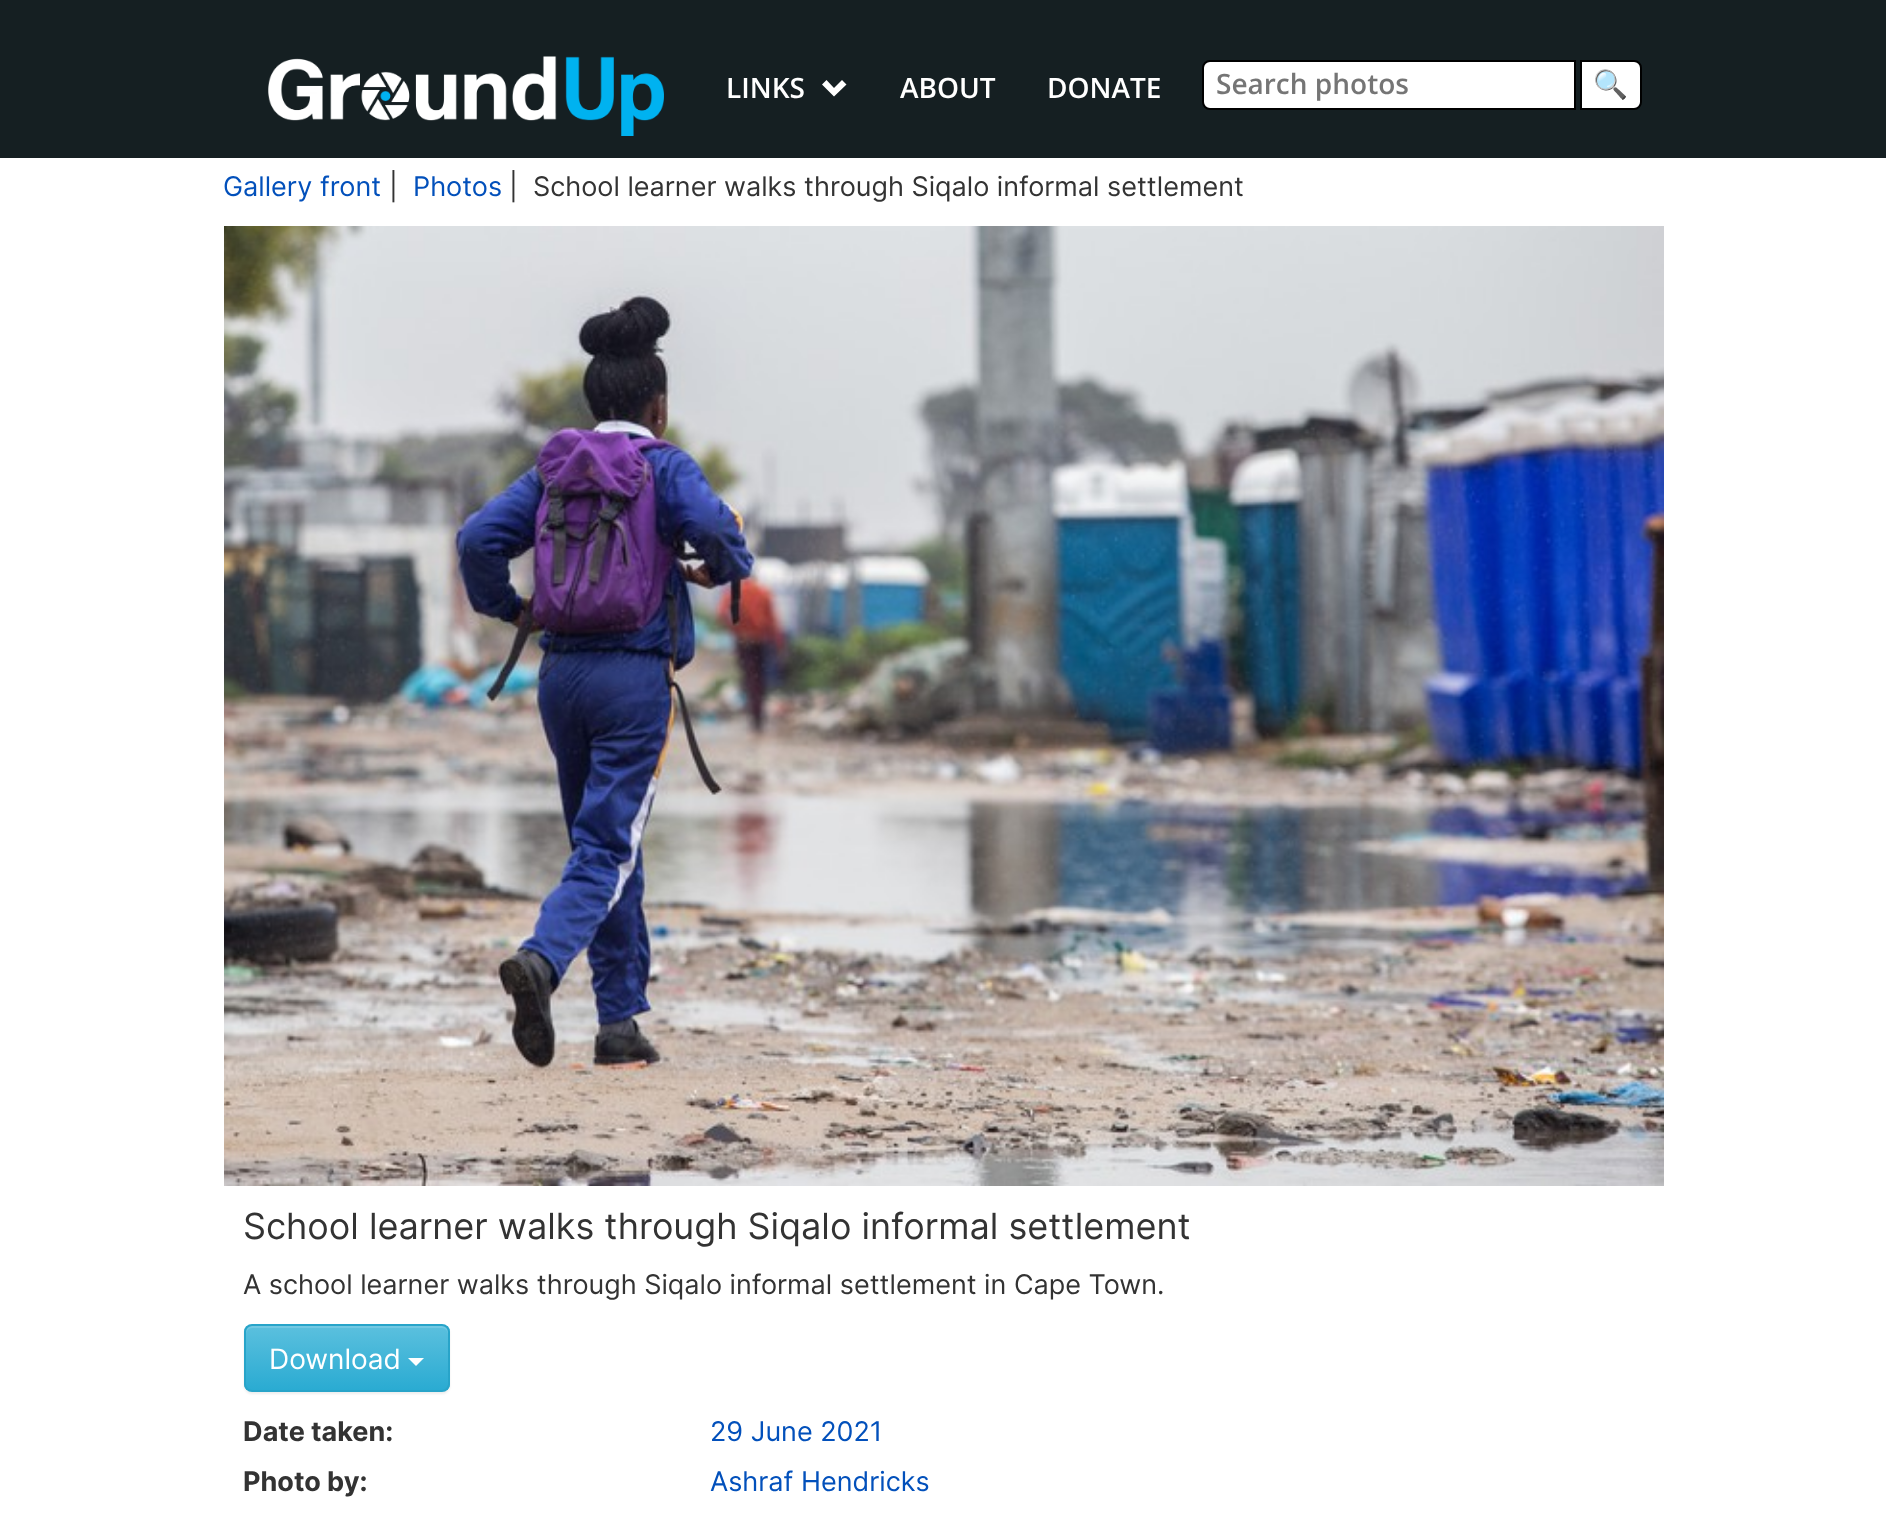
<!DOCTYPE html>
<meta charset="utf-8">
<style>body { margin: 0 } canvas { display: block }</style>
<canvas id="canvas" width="1886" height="1525"></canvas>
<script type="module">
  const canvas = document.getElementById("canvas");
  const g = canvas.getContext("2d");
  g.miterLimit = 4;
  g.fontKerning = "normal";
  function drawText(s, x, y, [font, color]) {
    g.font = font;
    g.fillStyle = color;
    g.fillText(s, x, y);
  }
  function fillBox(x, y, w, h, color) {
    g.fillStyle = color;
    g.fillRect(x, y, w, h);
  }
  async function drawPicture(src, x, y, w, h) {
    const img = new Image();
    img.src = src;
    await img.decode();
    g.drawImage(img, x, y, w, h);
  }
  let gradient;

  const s1 = ["600 28px Open Sans", "#FFFFFF"];
  const s2 = ["600 28px Open Sans", "#757575"];
  const s3 = ["bold 28px Noto Color Emoji", "#000000"];
  const s4 = ["27px Inter", "#0250BB"];
  const s5 = ["27px Inter", "#333333"];
  const s6 = ["36px Inter", "#333333"];
  const s7 = ["28px Inter", "#FFFFFF"];
  const s8 = ["bold 27px Inter", "#333333"];

  fillBox(0, 0, 1886, 1525, "#FFFFFF");
  fillBox(0, 0, 1886, 158, "#151F22");
  await drawPicture("pic1.png", 268, 56, 396, 80);
  drawText("LINKS", 726, 98, s1);
  g.beginPath();
  g.moveTo(846.5, 84.5);
  g.lineTo(834, 96.5);
  g.lineTo(822, 84.5);
  g.lineTo(826.5, 80);
  g.lineTo(834, 88);
  g.lineTo(842, 80);
  g.closePath();
  g.fill();
  drawText("ABOUT", 900, 98, s1);
  drawText("DONATE", 1047, 98, s1);
  g.beginPath();
  g.roundRect(1203, 61, 372, 48, [7, 0, 0, 7]);
  g.fill();
  g.strokeStyle = "#000000";
  g.lineWidth = 2;
  g.stroke();
  drawText("Search photos", 1216, 94, s2);
  g.fillStyle = "#FFFFFF";
  g.beginPath();
  g.roundRect(1581, 61, 60, 48, [0, 7, 7, 0]);
  g.fill();
  g.stroke();
  drawText("🔍", 1593, 94, s3);
  drawText("Gallery front", 223, 196, s4);
  drawText("|", 389, 196, s5);
  drawText("Photos", 413, 196, s4);
  drawText("|", 509, 196, s5);
  drawText("School learner walks through Siqalo informal settlement", 533, 196, s5);
  await drawPicture("pic2.png", 224, 226, 1440, 960);
  drawText("School learner walks through Siqalo informal settlement", 243, 1239, s6);
  drawText("A school learner walks through Siqalo informal settlement in Cape Town.", 243, 1294, s5);
  g.fillStyle = "rgba(0, 0, 0, 0.07)";
  g.filter = "blur(1px)";
  g.beginPath();
  g.roundRect(244, 1326, 206, 68, 8);
  g.fill();
  g.filter = "none";
  g.save();
  g.beginPath();
  g.roundRect(244, 1324, 206, 68, 8);
  g.clip();
  gradient = g.createLinearGradient(347, 1326, 347, 1390);
  gradient.addColorStop(0, "#5BC0DE");
  gradient.addColorStop(1, "#2AABD2");
  g.fillStyle = gradient;
  g.fillRect(244, 1326, 206, 64);
  g.restore();
  g.fillStyle = "rgba(255, 255, 255, 0.15)";
  g.beginPath();
  g.moveTo(252, 1328);
  g.lineTo(442, 1328);
  g.bezierCurveTo(445, 1328, 448, 1331, 448, 1334);
  g.lineTo(448, 1332);
  g.bezierCurveTo(448, 1329, 445, 1326, 442, 1326);
  g.lineTo(252, 1326);
  g.bezierCurveTo(249, 1326, 246, 1329, 246, 1332);
  g.lineTo(246, 1334);
  g.bezierCurveTo(246, 1331, 249, 1328, 252, 1328);
  g.closePath();
  g.fill();
  g.beginPath();
  g.roundRect(245, 1325, 204, 66, 7);
  g.strokeStyle = "#28A4C9";
  g.stroke();
  drawText("Download", 269, 1369, s7);
  g.beginPath();
  g.moveTo(408, 1358);
  g.lineTo(424, 1358);
  g.lineTo(416, 1366);
  g.closePath();
  g.fill();
  drawText("Date taken:", 243, 1441, s8);
  drawText("29 June 2021", 710, 1441, s4);
  drawText("Photo by:", 243, 1491, s8);
  drawText("Ashraf Hendricks", 710, 1491, s4);
</script>
